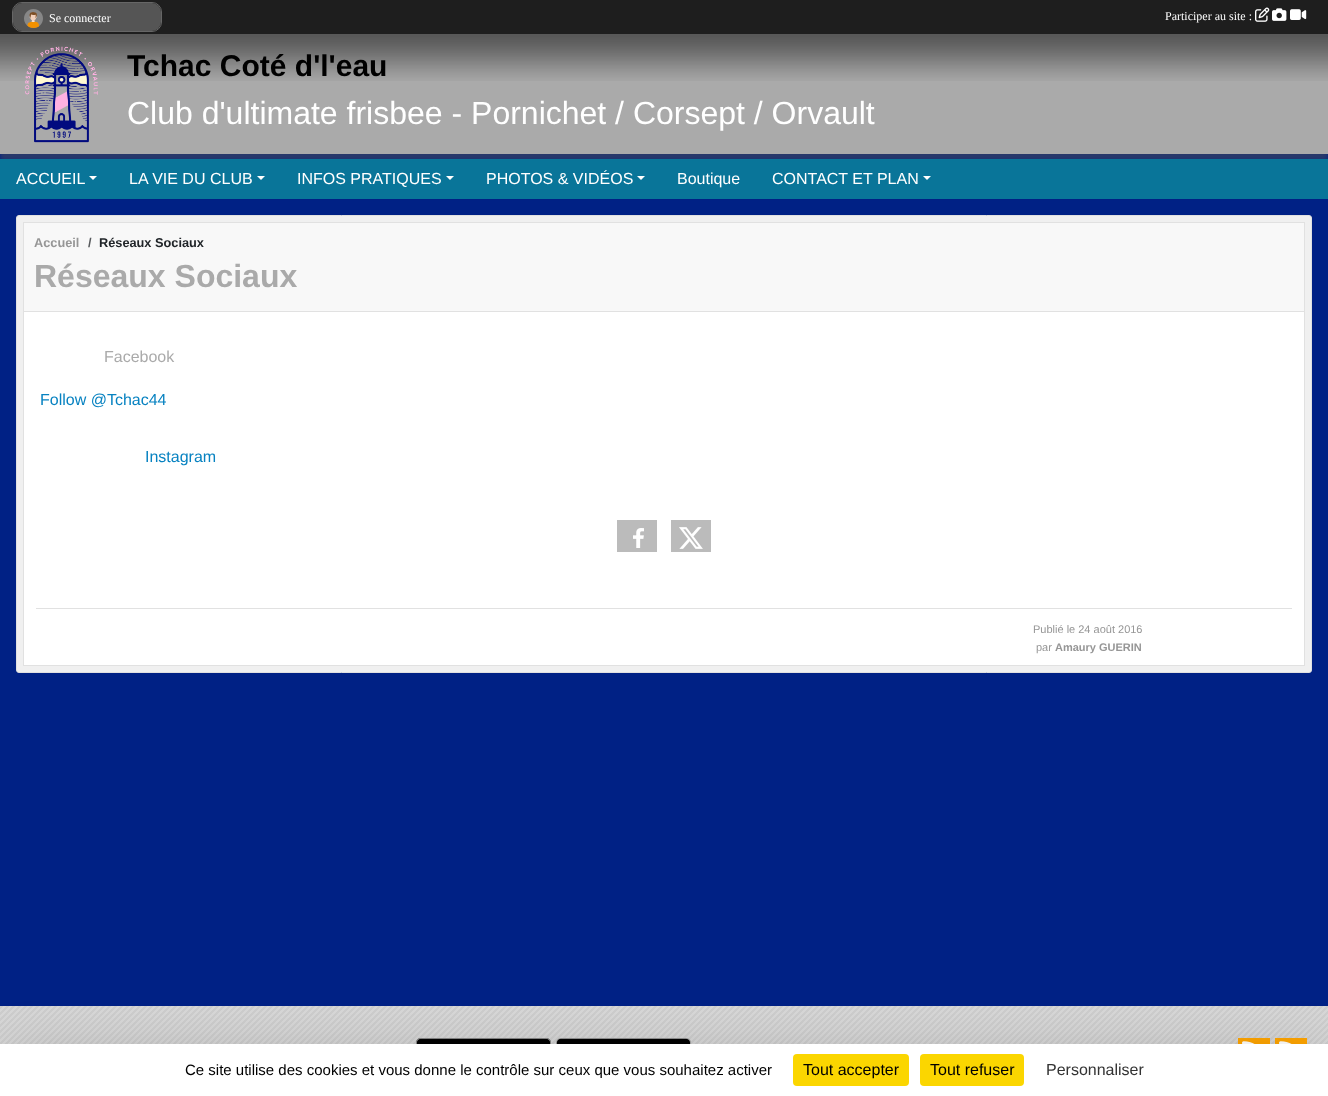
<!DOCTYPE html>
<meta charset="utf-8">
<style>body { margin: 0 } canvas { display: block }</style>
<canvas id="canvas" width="1328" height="1096"></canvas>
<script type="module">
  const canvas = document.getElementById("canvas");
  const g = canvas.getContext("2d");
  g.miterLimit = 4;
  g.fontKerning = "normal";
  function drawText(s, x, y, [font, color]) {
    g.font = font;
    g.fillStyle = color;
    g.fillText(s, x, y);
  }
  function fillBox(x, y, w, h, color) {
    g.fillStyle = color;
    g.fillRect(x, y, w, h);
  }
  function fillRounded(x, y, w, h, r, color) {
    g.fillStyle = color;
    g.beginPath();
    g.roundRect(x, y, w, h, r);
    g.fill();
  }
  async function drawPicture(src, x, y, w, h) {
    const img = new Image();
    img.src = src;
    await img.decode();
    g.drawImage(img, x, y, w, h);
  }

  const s1 = ["12px Liberation Serif", "#FFFFFF"];
  const s2 = ["bold 30px Liberation Sans", "#000000"];
  const s3 = ["32px Liberation Sans", "#FFFFFF"];
  const s4 = ["16px Liberation Sans", "#FFFFFF"];
  const s5 = ["bold 12.75px Liberation Sans", "#969696"];
  const s6 = ["bold 12.75px Liberation Sans", "#575A5D"];
  const s7 = ["bold 12.75px Liberation Sans", "#212529"];
  const s8 = ["bold 32px Liberation Sans", "#AAAAAA"];
  const s9 = ["16px Liberation Sans", "#AAAAAA"];
  const s10 = ["16px Liberation Sans", "#0782C1"];
  const s11 = ["11px Liberation Sans", "#969696"];
  const s12 = ["bold 11px Liberation Sans", "#969696"];
  const s13 = ["15px Liberation Sans", "#000000"];
  const s14 = ["16px Liberation Sans", "#000000"];
  const s15 = ["16px Liberation Sans", "#333333"];

  fillBox(0, 0, 1328, 1096, "#002185");
  g.fillStyle = "rgba(80, 80, 80, 0.5)";
  g.filter = "blur(2.5px)";
  g.beginPath();
  g.rect(0, 41, 1328, 120);
  g.fill();
  g.filter = "none";
  fillBox(0, 0, 1328, 34, "#1E1E1E");
  g.beginPath();
  g.roundRect(12.5, 2.5, 149, 29, 9.5);
  g.strokeStyle = "#666666";
  g.stroke();
  fillRounded(13, 3, 148, 28, 9, "#555555");
  await drawPicture("pic1.png", 24, 9, 19, 19);
  drawText("Se connecter", 49, 22, s1);
  drawText("Participer au site :", 1165, 20, s1);
  await drawPicture("pic2.png", 1255, 7, 15, 15);
  await drawPicture("pic3.png", 1272, 8, 15, 13);
  await drawPicture("pic4.png", 1290, 9, 17, 11);
  fillBox(0, 34, 1328, 120, "#AAAAAA");
  await drawPicture("pic5.png", 0, 34, 1328, 47);
  await drawPicture("pic6.png", 25, 46, 73, 97);
  drawText("Tchac Coté d'l'eau", 127, 76, s2);
  drawText("Club d'ultimate frisbee - Pornichet / Corsept / Orvault", 127, 124, s3);
  fillBox(0, 159, 1328, 40, "#097599");
  drawText("ACCUEIL", 16, 184, s4);
  g.beginPath();
  g.moveTo(89, 176);
  g.lineTo(97, 176);
  g.lineTo(93, 180);
  g.closePath();
  g.fill();
  drawText("LA VIE DU CLUB", 129, 184, s4);
  g.beginPath();
  g.moveTo(257, 176);
  g.lineTo(265, 176);
  g.lineTo(261, 180);
  g.closePath();
  g.fill();
  drawText("INFOS PRATIQUES", 297, 184, s4);
  g.beginPath();
  g.moveTo(446, 176);
  g.lineTo(454, 176);
  g.lineTo(450, 180);
  g.closePath();
  g.fill();
  drawText("PHOTOS & VIDÉOS", 486, 184, s4);
  g.beginPath();
  g.moveTo(637, 176);
  g.lineTo(645, 176);
  g.lineTo(641, 180);
  g.closePath();
  g.fill();
  drawText("Boutique", 677, 184, s4);
  drawText("CONTACT ET PLAN", 772, 184, s4);
  g.beginPath();
  g.moveTo(923, 176);
  g.lineTo(931, 176);
  g.lineTo(927, 180);
  g.closePath();
  g.fill();
  g.fillStyle = "#F0F0F0";
  g.beginPath();
  g.roundRect(16.5, 215.5, 1295, 457, 2.5);
  g.fill();
  g.strokeStyle = "#E1E1E1";
  g.stroke();
  fillBox(24, 312, 1280, 353, "#FFFFFF");
  g.strokeRect(23.5, 222.5, 1281, 443);
  fillBox(24, 223, 1280, 88, "#F8F8F8");
  fillBox(24, 311, 1280, 1, "#E1E1E1");
  drawText("Accueil", 34, 247, s5);
  drawText("/", 88, 247, s6);
  drawText("Réseaux Sociaux", 99, 247, s7);
  drawText("Réseaux Sociaux", 34, 287, s8);
  drawText("Facebook", 104, 362, s9);
  drawText("Follow @Tchac44", 40, 405, s10);
  drawText("Instagram", 145, 462, s10);
  fillBox(617, 520, 40, 32, "#BBBBBB");
  await drawPicture("pic7.png", 633, 528, 11, 20);
  fillBox(671, 520, 40, 32, "#BBBBBB");
  await drawPicture("pic8.png", 679, 527, 24, 22);
  fillBox(36, 608, 1256, 1, "#E1E1E1");
  drawText("Publié le 24 août 2016", 1033, 633, s11);
  drawText("par", 1036, 651, s11);
  drawText("Amaury GUERIN", 1055, 651, s12);
  await drawPicture("pic9.png", 0, 1006, 1328, 38);
  await drawPicture("pic10.png", 416, 1038, 135, 6);
  await drawPicture("pic11.png", 556, 1038, 135, 6);
  fillBox(1238, 1038, 32, 6, "#FFA500");
  await drawPicture("pic12.png", 1242, 1041, 13, 3);
  fillBox(1275, 1038, 32, 6, "#FFA500");
  await drawPicture("pic12.png", 1279, 1041, 13, 3);
  g.fillStyle = "rgba(0, 0, 0, 0.25)";
  g.filter = "blur(30px)";
  g.beginPath();
  g.rect(0, 1064, 1328, 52);
  g.fill();
  g.filter = "none";
  fillBox(0, 1044, 1328, 52, "#FFFFFF");
  drawText("Ce site utilise des cookies et vous donne le contrôle sur ceux que vous souhaitez activer", 185, 1075, s13);
  fillRounded(793, 1054, 116, 32, 4, "#FBD600");
  drawText("Tout accepter", 803, 1075, s14);
  fillRounded(920, 1054, 104, 32, 4, "#FBD600");
  drawText("Tout refuser", 930, 1075, s14);
  drawText("Personnaliser", 1046, 1075, s15);
</script>
